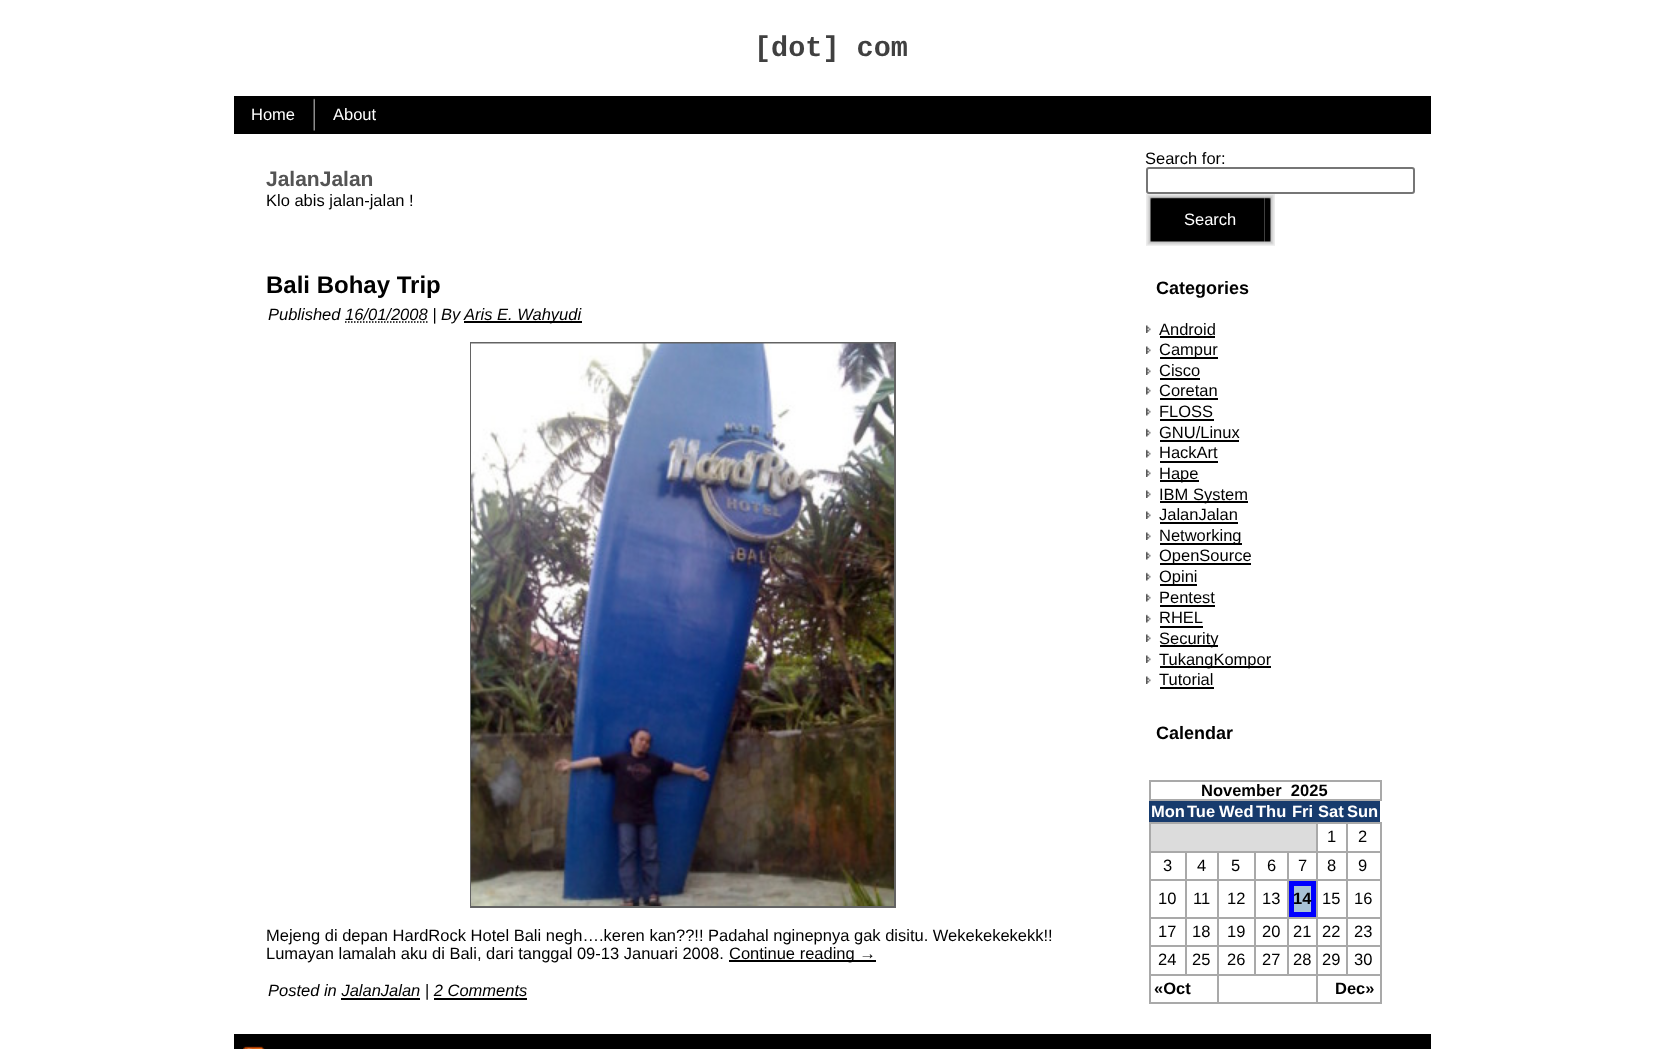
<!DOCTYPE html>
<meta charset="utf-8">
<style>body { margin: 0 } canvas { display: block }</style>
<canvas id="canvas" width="1663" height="1049"></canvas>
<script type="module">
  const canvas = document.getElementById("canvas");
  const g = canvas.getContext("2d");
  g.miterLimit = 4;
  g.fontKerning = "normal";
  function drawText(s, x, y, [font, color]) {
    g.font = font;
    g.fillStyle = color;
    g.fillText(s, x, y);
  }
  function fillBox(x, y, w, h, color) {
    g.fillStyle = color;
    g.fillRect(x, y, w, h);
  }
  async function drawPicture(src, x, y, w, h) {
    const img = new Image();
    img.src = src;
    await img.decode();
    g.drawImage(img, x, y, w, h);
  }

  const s1 = ["bold 28.5px Liberation Mono", "#404040"];
  const s2 = ["16.5px Liberation Sans", "#FFFFFF"];
  const s3 = ["bold 21px Liberation Sans", "#545454"];
  const s4 = ["16.5px Liberation Sans", "#000000"];
  const s5 = ["bold 24px Liberation Sans", "#000000"];
  const s6 = ["italic 16.5px Liberation Sans", "#000000"];
  const s7 = ["bold 18px Liberation Sans", "#000000"];
  const s8 = ["bold 16.5px Liberation Sans", "#000000"];
  const s9 = ["bold 16.5px Liberation Sans", "#FFFFFF"];

  fillBox(0, 0, 1663, 1049, "#FFFFFF");
  drawText("[dot] com", 754, 56, s1);
  fillBox(234, 96, 1197, 38, "#000000");
  drawText("Home", 251, 120, s2);
  await drawPicture("pic1.png", 313, 98, 2, 33);
  drawText("About", 333, 120, s2);
  drawText("JalanJalan", 266, 186, s3);
  drawText("Klo abis jalan-jalan !", 266, 206, s4);
  drawText("Bali Bohay Trip", 266, 293, s5);
  drawText("Published 16/01/2008 | By", 268, 320, s6);
  fillBox(464, 321, 118, 2, "#000000");
  drawText("Aris E. Wahyudi", 464, 320, s6);
  g.beginPath();
  g.moveTo(345, 322);
  g.lineTo(427.5, 322);
  g.strokeStyle = "#000000";
  g.lineWidth = 1.5;
  g.setLineDash([1.5, 1.5]);
  g.stroke();
  g.strokeStyle = "#636363";
  g.lineWidth = 2;
  g.setLineDash([]);
  g.strokeRect(471, 343, 424, 564);
  await drawPicture("pic2.png", 471, 343, 423, 563);
  drawText("Mejeng di depan HardRock Hotel Bali negh….keren kan??!! Padahal nginepnya gak disitu. Wekekekekekk!!", 266, 941, s4);
  drawText("Lumayan lamalah aku di Bali, dari tanggal 09-13 Januari 2008.", 266, 959, s4);
  fillBox(729, 960, 147, 2, "#000000");
  drawText("Continue reading →", 729, 959, s4);
  drawText("Posted in JalanJalan | 2 Comments", 268, 996, s6);
  fillBox(341, 998, 79, 2, "#000000");
  fillBox(434, 998, 93, 2, "#000000");
  drawText("Search for:", 1145, 164, s4);
  g.beginPath();
  g.roundRect(1147, 168, 267, 25, 2);
  g.strokeStyle = "#767676";
  g.stroke();
  await drawPicture("pic3.png", 1146, 194, 119, 52);
  await drawPicture("pic4.png", 1264, 194, 11, 52);
  drawText("Search", 1184, 225, s2);
  drawText("Categories", 1156, 294, s7);
  await drawPicture("pic5.png", 1146, 325, 5, 8);
  drawText("Android", 1159, 335, s4);
  fillBox(1160, 336, 55, 2, "#000000");
  await drawPicture("pic5.png", 1146, 346, 5, 8);
  fillBox(1160, 357, 58, 2, "#000000");
  drawText("Campur", 1159, 355, s4);
  await drawPicture("pic5.png", 1146, 367, 5, 8);
  drawText("Cisco", 1159, 376, s4);
  fillBox(1160, 378, 40, 2, "#000000");
  await drawPicture("pic6.png", 1146, 386, 5, 9);
  drawText("Coretan", 1159, 396, s4);
  fillBox(1160, 398, 58, 2, "#000000");
  await drawPicture("pic6.png", 1146, 407, 5, 9);
  drawText("FLOSS", 1159, 417, s4);
  fillBox(1160, 419, 54, 2, "#000000");
  await drawPicture("pic6.png", 1146, 428, 5, 9);
  drawText("GNU/Linux", 1159, 438, s4);
  fillBox(1160, 440, 79, 2, "#000000");
  await drawPicture("pic6.png", 1146, 449, 5, 9);
  drawText("HackArt", 1159, 458, s4);
  fillBox(1160, 461, 58, 2, "#000000");
  await drawPicture("pic5.png", 1146, 469, 5, 8);
  fillBox(1160, 480, 39, 2, "#000000");
  drawText("Hape", 1159, 479, s4);
  await drawPicture("pic5.png", 1146, 490, 5, 8);
  fillBox(1160, 501, 88, 2, "#000000");
  drawText("IBM System", 1159, 500, s4);
  await drawPicture("pic5.png", 1146, 511, 5, 8);
  drawText("JalanJalan", 1159, 520, s4);
  fillBox(1160, 522, 78, 2, "#000000");
  await drawPicture("pic5.png", 1146, 532, 5, 8);
  fillBox(1160, 543, 82, 2, "#000000");
  drawText("Networking", 1159, 541, s4);
  await drawPicture("pic6.png", 1146, 551, 5, 9);
  fillBox(1160, 563, 91, 2, "#000000");
  drawText("OpenSource", 1159, 561, s4);
  await drawPicture("pic6.png", 1146, 572, 5, 9);
  fillBox(1160, 584, 37, 2, "#000000");
  drawText("Opini", 1159, 582, s4);
  await drawPicture("pic6.png", 1146, 593, 5, 9);
  drawText("Pentest", 1159, 603, s4);
  fillBox(1160, 605, 55, 2, "#000000");
  await drawPicture("pic6.png", 1146, 614, 5, 9);
  drawText("RHEL", 1159, 623, s4);
  fillBox(1160, 626, 43, 2, "#000000");
  await drawPicture("pic5.png", 1146, 634, 5, 8);
  fillBox(1160, 645, 58, 2, "#000000");
  drawText("Security", 1159, 644, s4);
  await drawPicture("pic5.png", 1146, 655, 5, 8);
  fillBox(1160, 666, 111, 2, "#000000");
  drawText("TukangKompor", 1159, 665, s4);
  await drawPicture("pic5.png", 1146, 676, 5, 8);
  drawText("Tutorial", 1159, 685, s4);
  fillBox(1160, 687, 54, 2, "#000000");
  drawText("Calendar", 1156, 739, s7);
  g.strokeStyle = "#A9A9A9";
  g.strokeRect(1150, 781, 231, 19);
  drawText("November  2025", 1201, 796, s8);
  fillBox(1149, 801, 231, 21, "#173B6D");
  drawText("Mon", 1151, 817, s9);
  drawText("Tue", 1187, 817, s9);
  drawText("Wed", 1219, 817, s9);
  drawText("Thu", 1256, 817, s9);
  drawText("Fri", 1292, 817, s9);
  drawText("Sat", 1318, 817, s9);
  drawText("Sun", 1347, 817, s9);
  fillBox(1151, 824, 165, 27, "#DCDCDC");
  fillBox(1346, 822, 36, 2, "#A9A9A9");
  fillBox(1346, 851, 36, 2, "#A9A9A9");
  fillBox(1346, 879, 36, 2, "#A9A9A9");
  fillBox(1346, 917, 36, 2, "#A9A9A9");
  fillBox(1346, 945, 36, 2, "#A9A9A9");
  fillBox(1380, 945, 2, 30, "#A9A9A9");
  fillBox(1346, 974, 36, 2, "#A9A9A9");
  fillBox(1346, 945, 2, 30, "#A9A9A9");
  fillBox(1316, 945, 31, 2, "#A9A9A9");
  fillBox(1346, 917, 2, 30, "#A9A9A9");
  fillBox(1316, 917, 31, 2, "#A9A9A9");
  fillBox(1346, 879, 2, 39, "#A9A9A9");
  fillBox(1316, 879, 31, 2, "#A9A9A9");
  fillBox(1346, 851, 2, 30, "#A9A9A9");
  fillBox(1316, 851, 31, 2, "#A9A9A9");
  fillBox(1346, 822, 2, 30, "#A9A9A9");
  fillBox(1316, 822, 31, 2, "#A9A9A9");
  fillBox(1316, 974, 31, 2, "#A9A9A9");
  fillBox(1316, 945, 2, 30, "#A9A9A9");
  fillBox(1287, 945, 30, 2, "#A9A9A9");
  fillBox(1316, 917, 2, 30, "#A9A9A9");
  fillBox(1287, 917, 30, 2, "#A9A9A9");
  fillBox(1316, 879, 2, 39, "#A9A9A9");
  fillBox(1316, 851, 2, 30, "#A9A9A9");
  fillBox(1287, 851, 30, 2, "#A9A9A9");
  fillBox(1316, 822, 2, 30, "#A9A9A9");
  fillBox(1149, 822, 168, 2, "#A9A9A9");
  fillBox(1254, 879, 35, 2, "#A9A9A9");
  fillBox(1287, 974, 30, 2, "#A9A9A9");
  fillBox(1287, 945, 2, 30, "#A9A9A9");
  fillBox(1254, 945, 35, 2, "#A9A9A9");
  fillBox(1287, 917, 2, 30, "#A9A9A9");
  fillBox(1254, 917, 35, 2, "#A9A9A9");
  fillBox(1287, 879, 2, 39, "#A9A9A9");
  fillBox(1287, 879, 30, 2, "#A9A9A9");
  fillBox(1287, 851, 2, 30, "#A9A9A9");
  fillBox(1254, 851, 35, 2, "#A9A9A9");
  fillBox(1254, 974, 35, 2, "#A9A9A9");
  fillBox(1254, 945, 2, 30, "#A9A9A9");
  fillBox(1217, 945, 39, 2, "#A9A9A9");
  fillBox(1254, 917, 2, 30, "#A9A9A9");
  fillBox(1217, 917, 39, 2, "#A9A9A9");
  fillBox(1254, 879, 2, 39, "#A9A9A9");
  fillBox(1217, 879, 39, 2, "#A9A9A9");
  fillBox(1254, 851, 2, 30, "#A9A9A9");
  fillBox(1217, 851, 39, 2, "#A9A9A9");
  fillBox(1217, 974, 39, 2, "#A9A9A9");
  fillBox(1217, 945, 2, 30, "#A9A9A9");
  fillBox(1185, 945, 33, 2, "#A9A9A9");
  fillBox(1217, 917, 2, 30, "#A9A9A9");
  fillBox(1185, 917, 33, 2, "#A9A9A9");
  fillBox(1217, 879, 2, 39, "#A9A9A9");
  fillBox(1185, 879, 33, 2, "#A9A9A9");
  fillBox(1217, 851, 2, 30, "#A9A9A9");
  fillBox(1185, 851, 33, 2, "#A9A9A9");
  fillBox(1185, 974, 33, 2, "#A9A9A9");
  fillBox(1185, 945, 2, 30, "#A9A9A9");
  fillBox(1149, 945, 38, 2, "#A9A9A9");
  fillBox(1185, 917, 2, 30, "#A9A9A9");
  fillBox(1149, 917, 38, 2, "#A9A9A9");
  fillBox(1185, 879, 2, 39, "#A9A9A9");
  fillBox(1149, 879, 38, 2, "#A9A9A9");
  fillBox(1185, 851, 2, 30, "#A9A9A9");
  fillBox(1149, 851, 38, 2, "#A9A9A9");
  fillBox(1149, 974, 38, 2, "#A9A9A9");
  fillBox(1149, 945, 2, 30, "#A9A9A9");
  fillBox(1149, 917, 2, 30, "#A9A9A9");
  fillBox(1149, 879, 2, 39, "#A9A9A9");
  fillBox(1149, 851, 2, 30, "#A9A9A9");
  fillBox(1149, 822, 2, 30, "#A9A9A9");
  drawText("1", 1327, 842, s4);
  fillBox(1380, 917, 2, 30, "#A9A9A9");
  fillBox(1380, 879, 2, 39, "#A9A9A9");
  fillBox(1380, 851, 2, 30, "#A9A9A9");
  fillBox(1380, 822, 2, 30, "#A9A9A9");
  drawText("2", 1358, 842, s4);
  drawText("3", 1163, 871, s4);
  drawText("4", 1197, 871, s4);
  drawText("5", 1231, 871, s4);
  drawText("6", 1267, 871, s4);
  drawText("7", 1298, 871, s4);
  drawText("8", 1327, 871, s4);
  drawText("9", 1358, 871, s4);
  drawText("10", 1158, 904, s4);
  drawText("11", 1193, 904, s4);
  drawText("12", 1227, 904, s4);
  drawText("13", 1262, 904, s4);
  g.fillStyle = "#A8C3D6";
  g.beginPath();
  g.rect(1291.5, 883.5, 22, 31);
  g.fill();
  g.strokeStyle = "#0000FF";
  g.lineWidth = 5;
  g.stroke();
  drawText("14", 1293, 904, s8);
  drawText("15", 1322, 904, s4);
  drawText("16", 1354, 904, s4);
  drawText("17", 1158, 937, s4);
  drawText("18", 1192, 937, s4);
  drawText("19", 1227, 937, s4);
  drawText("20", 1262, 937, s4);
  drawText("21", 1293, 937, s4);
  drawText("22", 1322, 937, s4);
  drawText("23", 1354, 937, s4);
  drawText("24", 1158, 965, s4);
  drawText("25", 1192, 965, s4);
  drawText("26", 1227, 965, s4);
  drawText("27", 1262, 965, s4);
  drawText("28", 1293, 965, s4);
  drawText("29", 1322, 965, s4);
  drawText("30", 1354, 965, s4);
  fillBox(1380, 974, 2, 30, "#A9A9A9");
  fillBox(1316, 1002, 66, 2, "#A9A9A9");
  fillBox(1316, 974, 2, 30, "#A9A9A9");
  fillBox(1217, 1002, 100, 2, "#A9A9A9");
  fillBox(1217, 974, 2, 30, "#A9A9A9");
  fillBox(1149, 1002, 69, 2, "#A9A9A9");
  fillBox(1149, 974, 2, 30, "#A9A9A9");
  drawText("«Oct", 1154, 994, s8);
  drawText("Dec»", 1335, 994, s8);
  fillBox(234, 1034, 1197, 15, "#000000");
  await drawPicture("pic7.png", 243, 1046, 22, 3);
</script>
